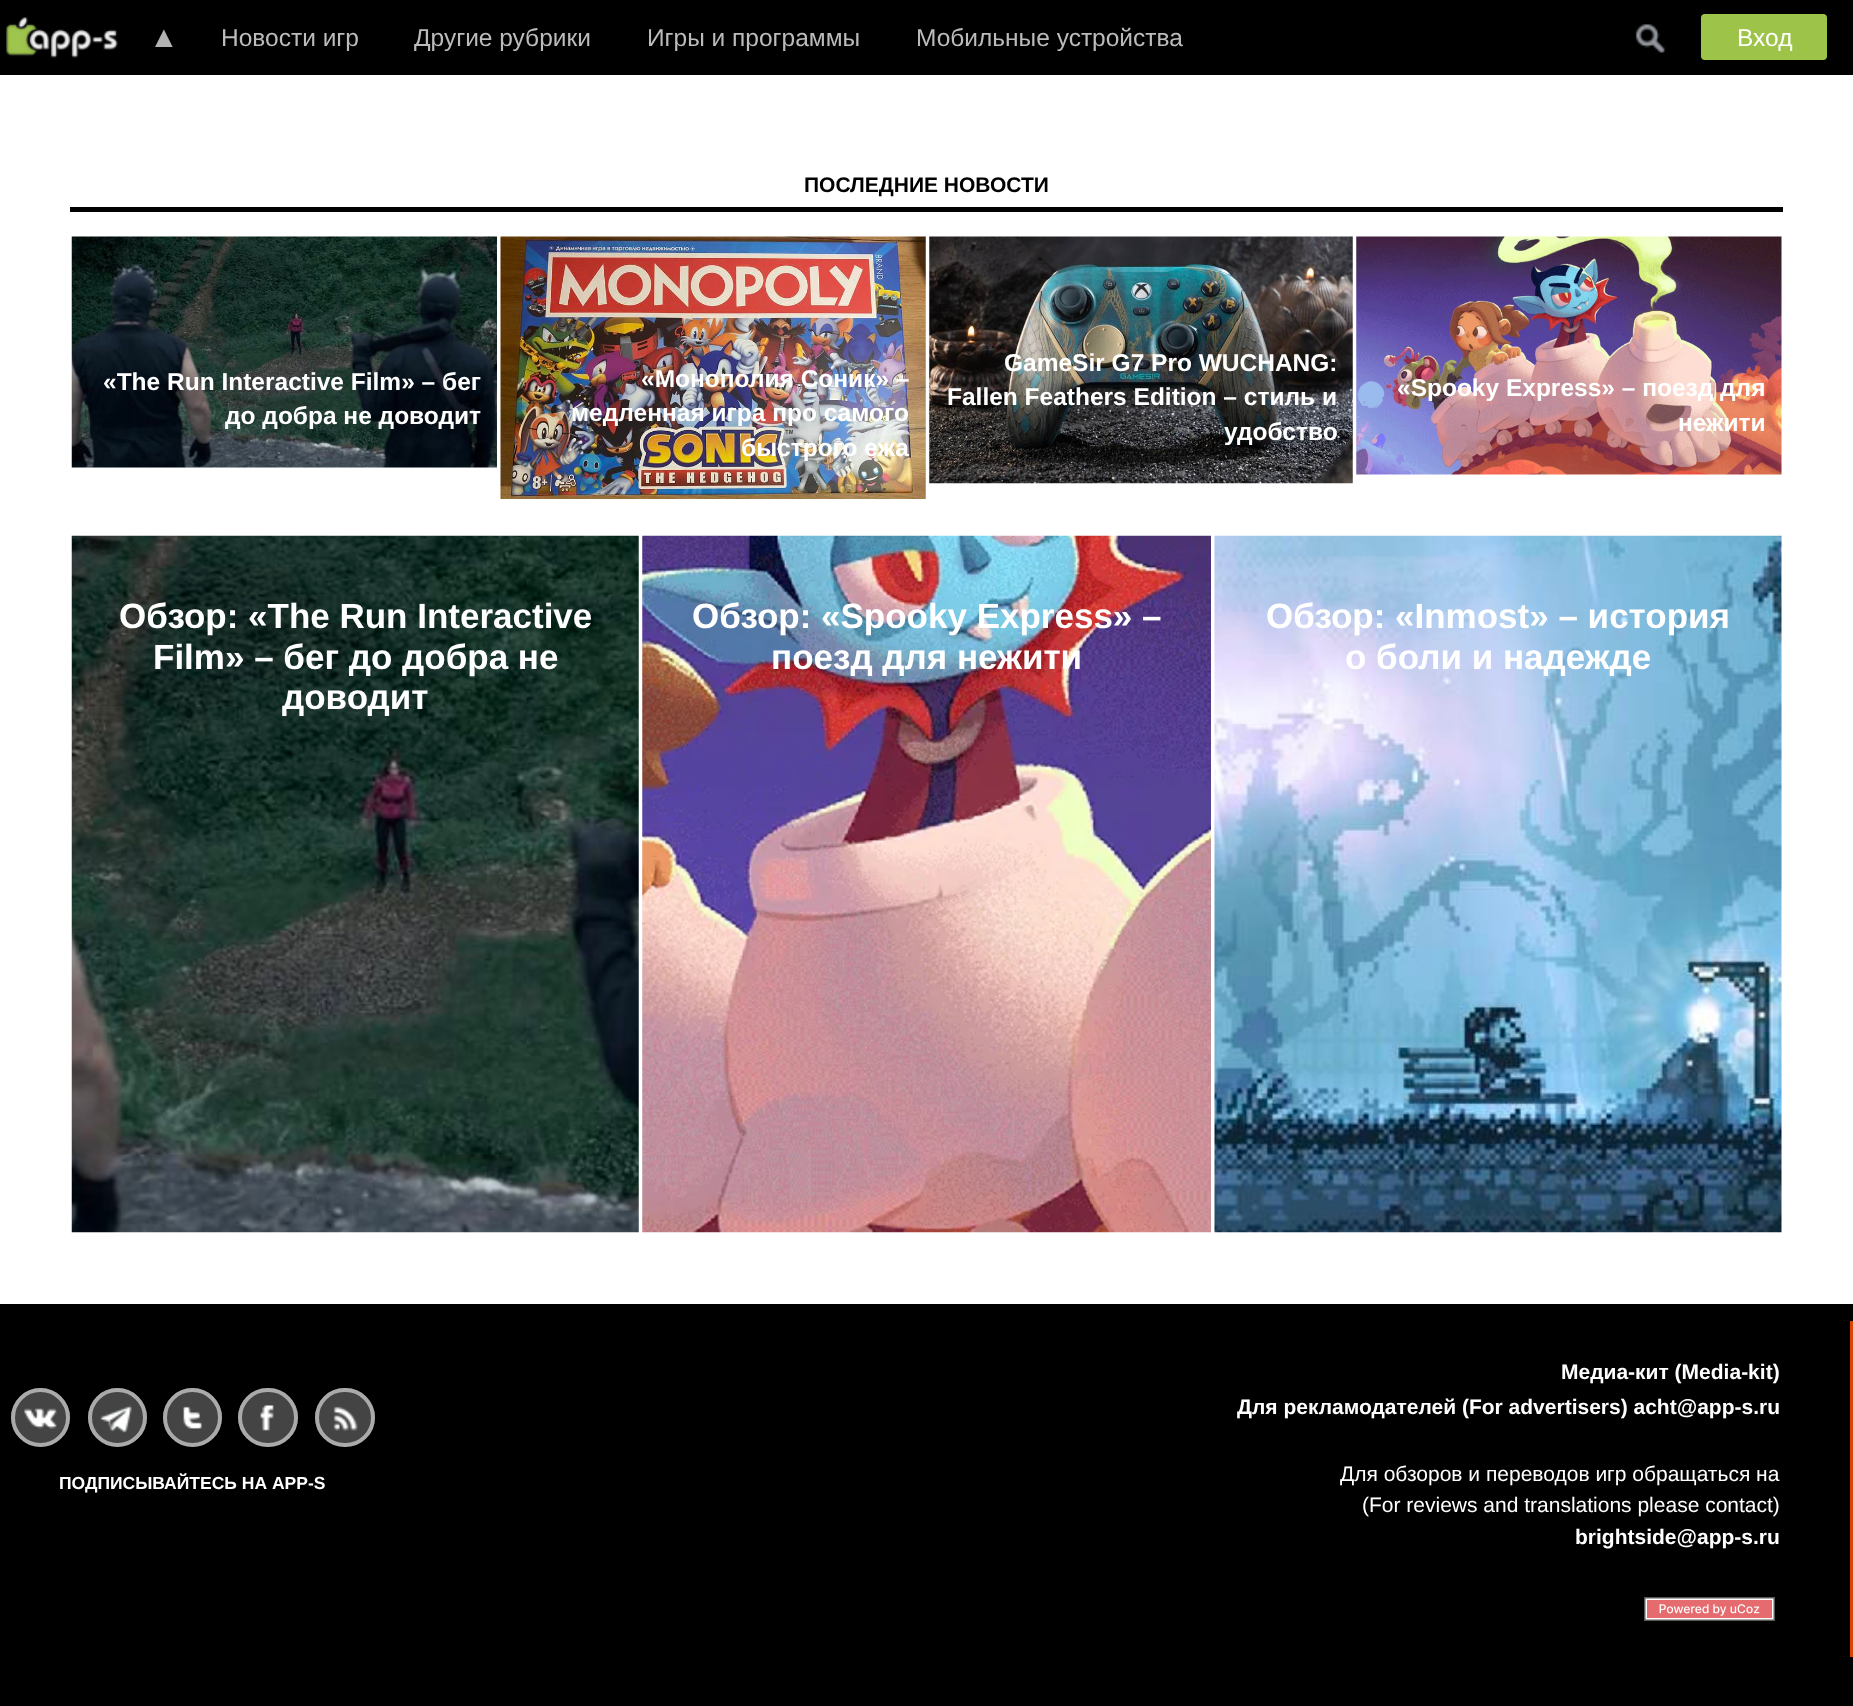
<!DOCTYPE html>
<meta charset="utf-8">
<style>body { margin: 0 } canvas { display: block }</style>
<canvas id="canvas" width="1853" height="1706"></canvas>
<script type="module">
  const canvas = document.getElementById("canvas");
  const g = canvas.getContext("2d");
  g.miterLimit = 4;
  g.fontKerning = "normal";
  function drawText(s, x, y, [font, color]) {
    g.font = font;
    g.fillStyle = color;
    g.fillText(s, x, y);
  }
  function fillBox(x, y, w, h, color) {
    g.fillStyle = color;
    g.fillRect(x, y, w, h);
  }
  function fillRounded(x, y, w, h, r, color) {
    g.fillStyle = color;
    g.beginPath();
    g.roundRect(x, y, w, h, r);
    g.fill();
  }
  async function drawPicture(src, x, y, w, h) {
    const img = new Image();
    img.src = src;
    await img.decode();
    g.drawImage(img, x, y, w, h);
  }

  const s1 = ["30px Liberation Sans", "#B3B3B3"];
  const s2 = ["24.5px Liberation Sans", "#BBBBBB"];
  const s3 = ["24.5px Liberation Sans", "#FFFFFF"];
  const s4 = ["bold 21px Liberation Sans", "#000000"];
  const s5 = ["bold 24.5px Liberation Sans", "#FFFFFF"];
  const s6 = ["bold 35px Liberation Sans", "#FFFFFF"];
  const s7 = ["bold 17.5px Liberation Sans", "#FFFFFF"];
  const s8 = ["bold 21px Liberation Sans", "#FFFFFF"];
  const s9 = ["21px Liberation Sans", "#FFFFFF"];

  fillBox(0, 0, 1853, 1706, "#FFFFFF");
  fillBox(0, 0, 1853, 75, "#000000");
  await drawPicture("pic1.png", 6, 17, 112, 41);
  drawText("▲", 149, 47, s1);
  drawText("Новости игр", 221, 46, s2);
  drawText("Другие рубрики", 414, 46, s2);
  drawText("Игры и программы", 647, 46, s2);
  drawText("Мобильные устройства", 916, 46, s2);
  await drawPicture("pic2.png", 1635, 24, 30, 29);
  fillRounded(1701, 14, 126, 46, 4, "#9DC448");
  drawText("Вход", 1737, 46, s3);
  fillBox(70, 207, 1713, 5, "#000000");
  drawText("ПОСЛЕДНИЕ НОВОСТИ", 804, 192, s4);
  await drawPicture("pic3.png", 71, 236, 426, 232);
  drawText("«The Run Interactive Film» – бег", 103, 390, s5);
  drawText("до добра не доводит", 225, 424, s5);
  await drawPicture("pic4.png", 500, 236, 426, 263);
  drawText("«Монополия Соник» –", 641, 387, s5);
  drawText("медленная игра про самого", 571, 421, s5);
  drawText("быстрого ежа", 741, 456, s5);
  await drawPicture("pic5.png", 929, 236, 424, 248);
  drawText("GameSir G7 Pro WUCHANG:", 1004, 371, s5);
  drawText("Fallen Feathers Edition – стиль и", 947, 405, s5);
  drawText("удобство", 1224, 440, s5);
  await drawPicture("pic6.png", 1356, 236, 426, 239);
  drawText("«Spooky Express» – поезд для", 1397, 396, s5);
  drawText("нежити", 1678, 431, s5);
  await drawPicture("pic7.png", 71, 535, 568, 698);
  drawText("Обзор: «The Run Interactive", 119, 628, s6);
  drawText("Film» – бег до добра не", 153, 669, s6);
  drawText("доводит", 282, 709, s6);
  await drawPicture("pic8.png", 642, 535, 569, 698);
  drawText("Обзор: «Spooky Express» –", 692, 628, s6);
  drawText("поезд для нежити", 771, 669, s6);
  await drawPicture("pic9.png", 1214, 535, 568, 698);
  drawText("Обзор: «Inmost» – история", 1266, 628, s6);
  drawText("о боли и надежде", 1345, 669, s6);
  fillBox(0, 1304, 1853, 402, "#000000");
  g.fillStyle = "#444444";
  g.beginPath();
  g.arc(40.5, 1417.5, 29.5, 0, Math.PI * 2);
  g.fill();
  await drawPicture("pic10.png", 24, 1408, 33, 21);
  g.beginPath();
  g.arc(40.5, 1417.5, 27.5, 0, Math.PI * 2);
  g.strokeStyle = "#AAAAAA";
  g.lineWidth = 4;
  g.stroke();
  g.beginPath();
  g.arc(117.5, 1417.5, 29.5, 0, Math.PI * 2);
  g.fill();
  await drawPicture("pic11.png", 99, 1405, 33, 28);
  g.beginPath();
  g.arc(117.5, 1417.5, 27.5, 0, Math.PI * 2);
  g.stroke();
  g.beginPath();
  g.arc(192.5, 1417.5, 29.5, 0, Math.PI * 2);
  g.fill();
  await drawPicture("pic12.png", 183, 1406, 19, 23);
  g.beginPath();
  g.arc(192.5, 1417.5, 27.5, 0, Math.PI * 2);
  g.stroke();
  fillRounded(238, 1388, 60, 59, 29.5, "#444444");
  await drawPicture("pic13.png", 260, 1405, 14, 26);
  g.beginPath();
  g.roundRect(240, 1390, 56, 55, 27.5);
  g.stroke();
  fillRounded(315, 1388, 60, 59, 29.5, "#444444");
  await drawPicture("pic14.png", 333, 1406, 25, 25);
  g.beginPath();
  g.roundRect(317, 1390, 56, 55, 27.5);
  g.stroke();
  drawText("ПОДПИСЫВАЙТЕСЬ НА APP-S", 59, 1489, s7);
  fillBox(1850, 1321, 3, 336, "#DC4300");
  drawText("Медиа-кит (Media-kit)", 1561, 1379, s8);
  drawText("Для рекламодателей (For advertisers) acht@app-s.ru", 1237, 1414, s8);
  drawText("Для обзоров и переводов игр обращаться на", 1340, 1481, s9);
  drawText("(For reviews and translations please contact)", 1362, 1512, s9);
  drawText("brightside@app-s.ru", 1575, 1544, s8);
  await drawPicture("pic15.png", 1644, 1597, 131, 24);
</script>
